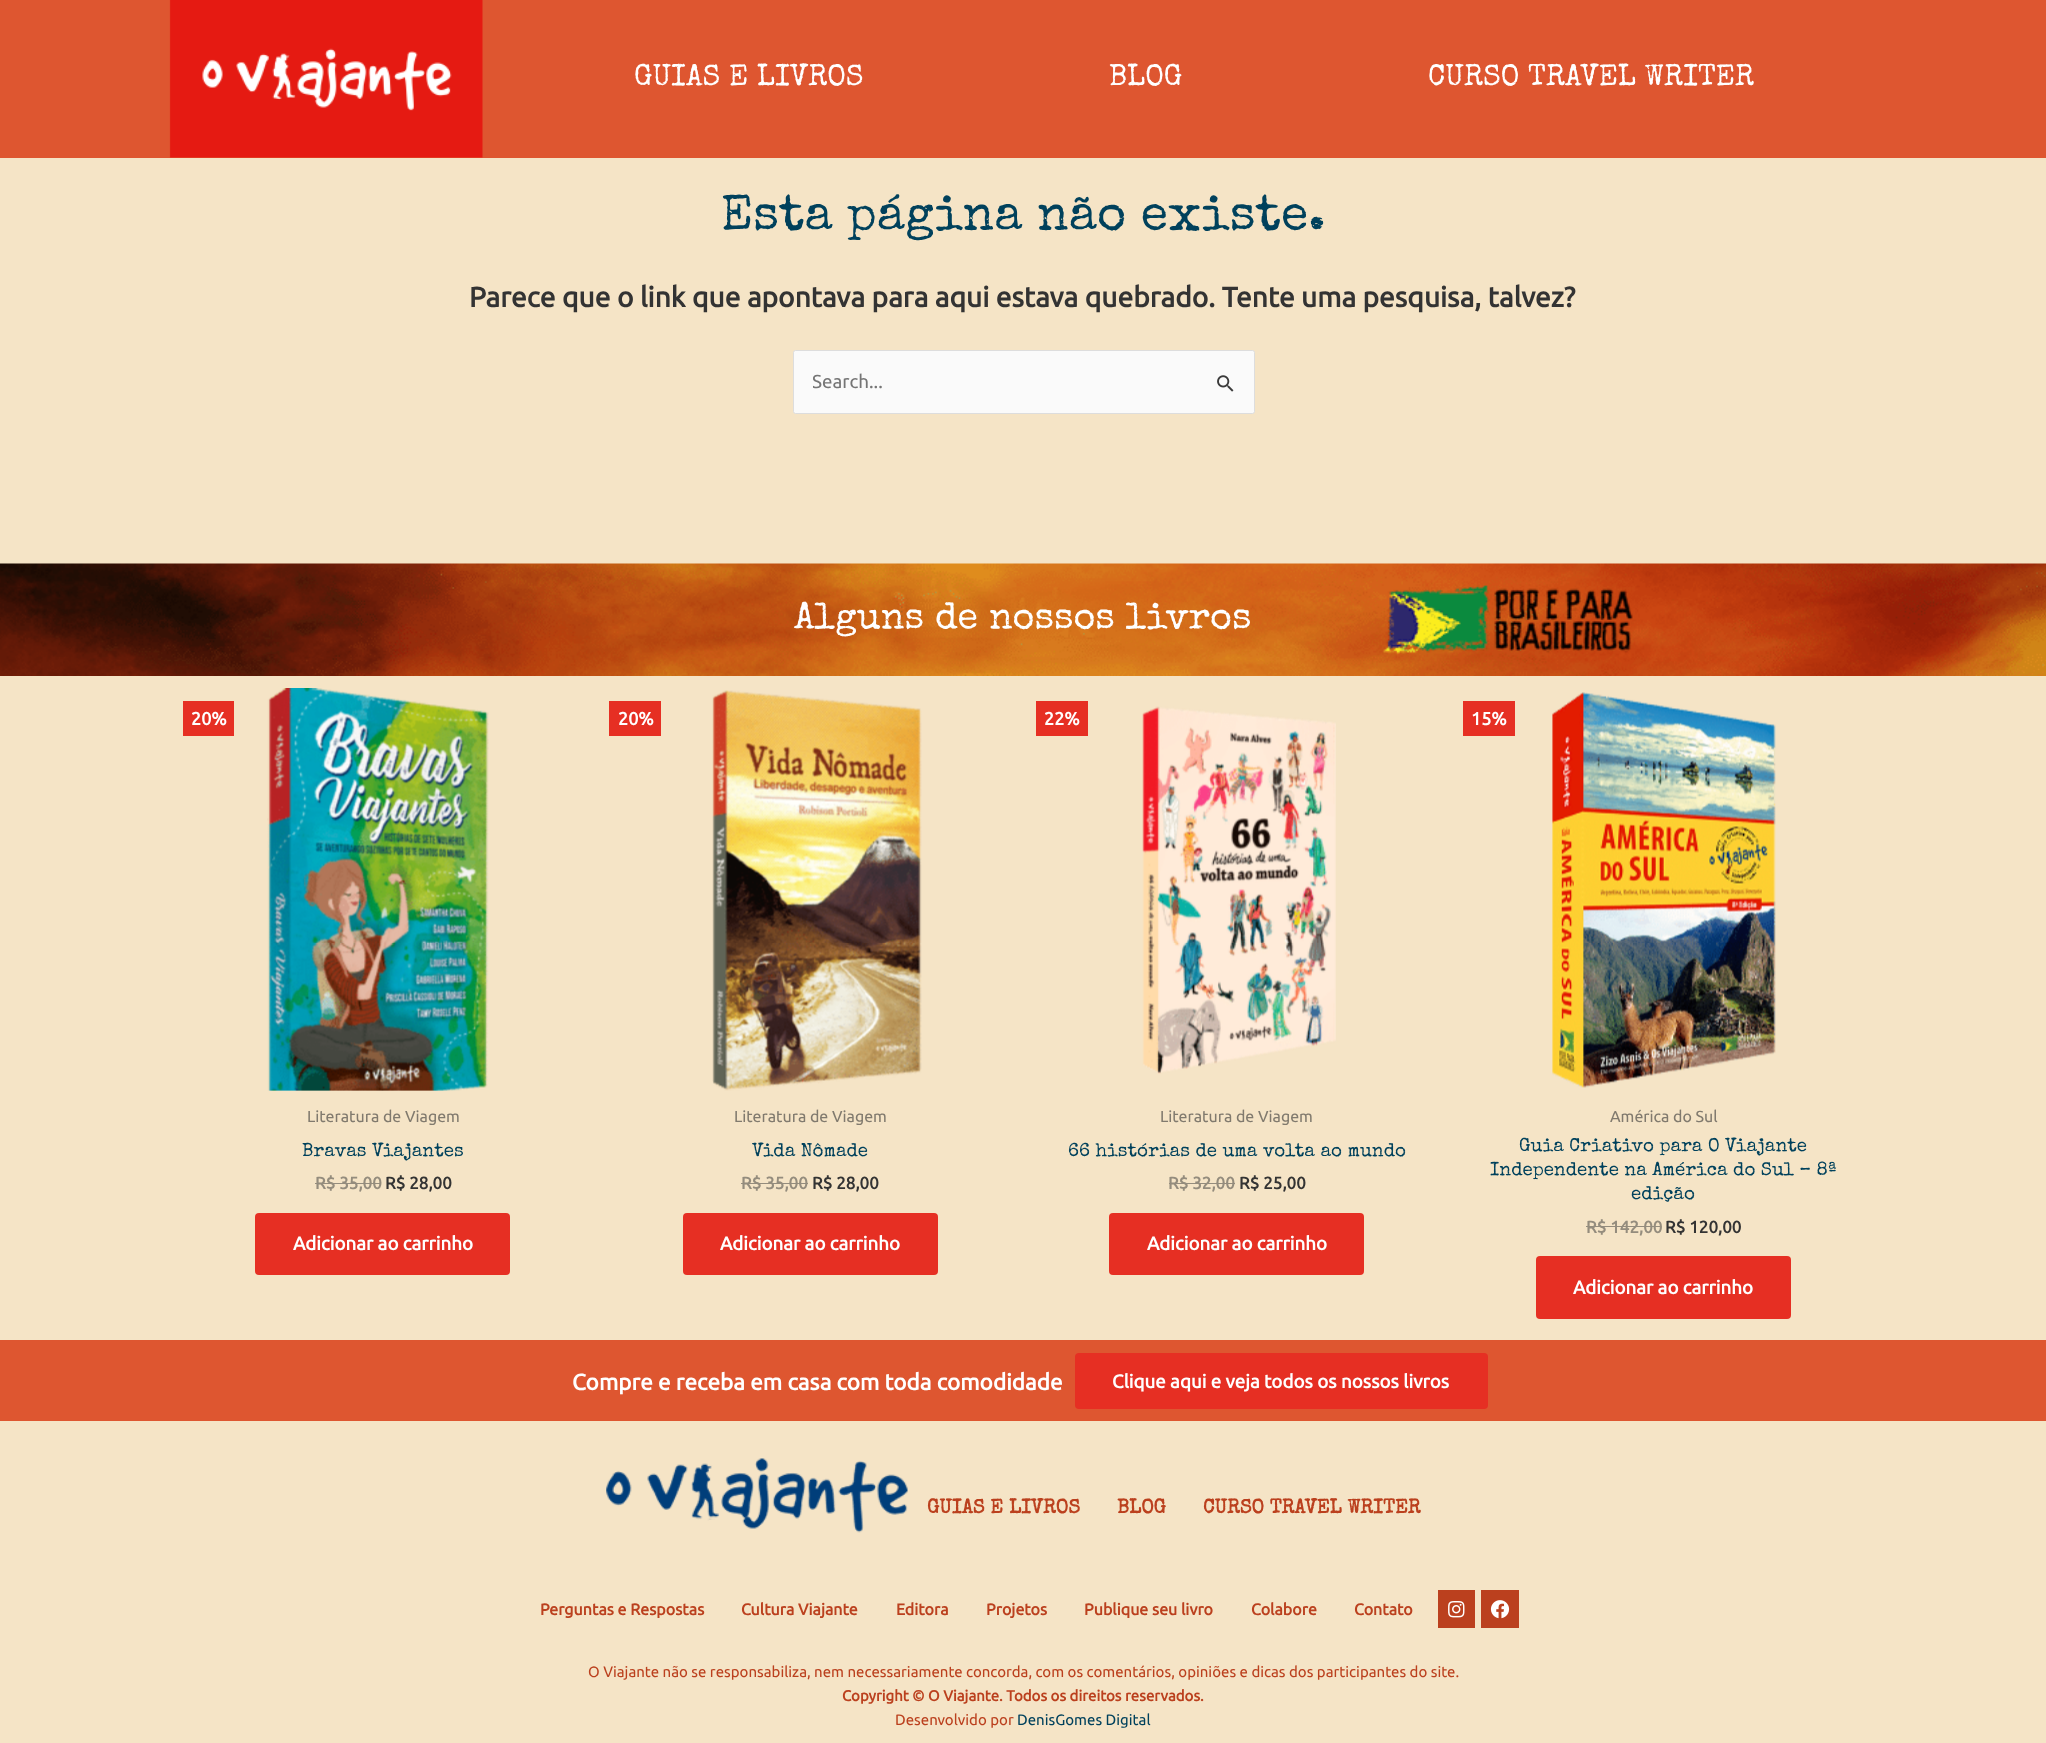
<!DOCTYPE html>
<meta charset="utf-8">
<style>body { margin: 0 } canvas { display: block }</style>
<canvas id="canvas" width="2046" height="1743"></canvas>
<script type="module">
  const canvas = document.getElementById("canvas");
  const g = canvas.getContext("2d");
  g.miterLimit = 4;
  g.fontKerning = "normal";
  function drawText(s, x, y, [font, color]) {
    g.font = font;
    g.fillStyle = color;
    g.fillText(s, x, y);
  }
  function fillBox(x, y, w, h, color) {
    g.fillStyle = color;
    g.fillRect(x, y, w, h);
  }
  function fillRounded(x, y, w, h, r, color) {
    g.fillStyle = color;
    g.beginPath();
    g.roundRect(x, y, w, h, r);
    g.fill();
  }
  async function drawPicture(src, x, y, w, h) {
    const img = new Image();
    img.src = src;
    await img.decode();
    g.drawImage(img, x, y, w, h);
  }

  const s1 = ["30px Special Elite", "#FFFFFF"];
  const s2 = ["50px Special Elite", "#00415C"];
  const s3 = ["bold 28.1px Ubuntu", "#333333"];
  const s4 = ["18.75px Ubuntu", "#757575"];
  const s5 = ["37.5px Special Elite", "#FFFFFF"];
  const s6 = ["bold 18px Ubuntu", "#FFFFFF"];
  const s7 = ["16px Ubuntu", "#817A6E"];
  const s8 = ["18.75px Special Elite", "#00415C"];
  const s9 = ["bold 17px Ubuntu", "#948C7D"];
  const s10 = ["bold 17px Ubuntu", "#333333"];
  const s11 = ["bold 18.75px Ubuntu", "#FFFFFF"];
  const s12 = ["bold 22.5px Ubuntu", "#FFFFFF"];
  const s13 = ["bold 20px Special Elite", "#BB401E"];
  const s14 = ["bold 16px Ubuntu", "#BB401E"];
  const s15 = ["15px Ubuntu", "#BB401E"];
  const s16 = ["bold 15px Ubuntu", "#BB401E"];
  const s17 = ["15px Ubuntu", "#00415C"];

  fillBox(0, 0, 2046, 1743, "#F5E4C6");
  fillBox(0, 0, 2046, 158, "#DE5630");
  await drawPicture("pic1.png", 169, 0, 314, 158);
  drawText("GUIAS E LIVROS", 634, 85, s1);
  drawText("BLOG", 1109, 85, s1);
  drawText("CURSO TRAVEL WRITER", 1428, 85, s1);
  drawText("Esta página não existe.", 721, 229, s2);
  drawText("Parece que o link que apontava para aqui estava quebrado. Tente uma pesquisa, talvez?", 469, 307, s3);
  g.fillStyle = "#FAFAFA";
  g.beginPath();
  g.roundRect(793.5, 350.5, 461, 63, 2);
  g.fill();
  g.strokeStyle = "#DDDDDD";
  g.stroke();
  g.save();
  g.beginPath();
  g.rect(813, 370, 380, 21);
  g.clip();
  drawText("Search...", 812, 388, s4);
  g.restore();
  await drawPicture("pic2.png", 1217, 375, 17, 17);
  await drawPicture("pic3.png", 0, 563, 2046, 113);
  drawText("Alguns de nossos livros", 794, 628, s5);
  fillBox(183, 701, 51, 35, "#E62F23");
  drawText("20%", 191, 725, s6);
  await drawPicture("pic4.png", 267, 688, 222, 403);
  drawText("Literatura de Viagem", 307, 1122, s7);
  drawText("Bravas Viajantes", 302, 1156, s8);
  drawText("R$ 35,00", 315, 1189, s9);
  fillBox(315, 1183, 66, 1, "#948C7D");
  drawText("R$ 28,00", 385, 1189, s10);
  fillRounded(255, 1213, 255, 62, 4, "#E62F23");
  drawText("Adicionar ao carrinho", 293, 1250, s11);
  fillBox(609, 701, 52, 35, "#E62F23");
  drawText("20%", 618, 725, s6);
  await drawPicture("pic5.png", 712, 690, 210, 401);
  drawText("Literatura de Viagem", 734, 1122, s7);
  drawText("Vida Nômade", 752, 1156, s8);
  drawText("R$ 35,00", 741, 1189, s9);
  fillBox(741, 1183, 67, 1, "#948C7D");
  drawText("R$ 28,00", 812, 1189, s10);
  fillRounded(683, 1213, 255, 62, 4, "#E62F23");
  drawText("Adicionar ao carrinho", 720, 1250, s11);
  fillBox(1036, 701, 52, 35, "#E62F23");
  drawText("22%", 1044, 725, s6);
  await drawPicture("pic6.png", 1142, 706, 194, 368);
  drawText("Literatura de Viagem", 1160, 1122, s7);
  drawText("66 histórias de uma volta ao mundo", 1068, 1156, s8);
  drawText("R$ 32,00", 1168, 1189, s9);
  fillBox(1169, 1183, 66, 1, "#948C7D");
  drawText("R$ 25,00", 1239, 1189, s10);
  fillRounded(1109, 1213, 255, 62, 4, "#E62F23");
  drawText("Adicionar ao carrinho", 1147, 1250, s11);
  fillBox(1463, 701, 52, 35, "#E62F23");
  drawText("15%", 1471, 725, s6);
  await drawPicture("pic7.png", 1552, 692, 224, 396);
  drawText("América do Sul", 1610, 1122, s7);
  drawText("Guia Criativo para O Viajante", 1519, 1151, s8);
  drawText("Independente na América do Sul – 8ª", 1490, 1175, s8);
  drawText("edição", 1631, 1199, s8);
  drawText("R$ 142,00", 1586, 1233, s9);
  fillBox(1586, 1226, 75, 1, "#948C7D");
  drawText("R$ 120,00", 1665, 1233, s10);
  fillRounded(1536, 1256, 255, 63, 4, "#E62F23");
  drawText("Adicionar ao carrinho", 1573, 1294, s11);
  fillBox(0, 1340, 2046, 81, "#DE5630");
  drawText("Compre e receba em casa com toda comodidade", 572, 1390, s12);
  fillRounded(1075, 1353, 413, 56, 4, "#E62F23");
  drawText("Clique aqui e veja todos os nossos livros", 1112, 1388, s11);
  await drawPicture("pic8.png", 606, 1458, 302, 75);
  drawText("GUIAS E LIVROS", 927, 1513, s13);
  drawText("BLOG", 1117, 1513, s13);
  drawText("CURSO TRAVEL WRITER", 1203, 1513, s13);
  drawText("Perguntas e Respostas", 540, 1615, s14);
  drawText("Cultura Viajante", 741, 1615, s14);
  drawText("Editora", 896, 1615, s14);
  drawText("Projetos", 986, 1615, s14);
  drawText("Publique seu livro", 1084, 1615, s14);
  drawText("Colabore", 1251, 1615, s14);
  drawText("Contato", 1354, 1615, s14);
  fillBox(1438, 1590, 37, 38, "#BB401E");
  await drawPicture("pic9.png", 1448, 1601, 17, 17);
  fillBox(1481, 1590, 38, 38, "#BB401E");
  await drawPicture("pic10.png", 1490, 1600, 20, 19);
  drawText("O Viajante não se responsabiliza, nem necessariamente concorda, com os comentários, opiniões e dicas dos participantes do site.", 588, 1677, s15);
  drawText("Copyright © O Viajante. Todos os direitos reservados.", 842, 1701, s16);
  drawText("Desenvolvido por", 895, 1725, s15);
  drawText("DenisGomes Digital", 1017, 1725, s17);
</script>
